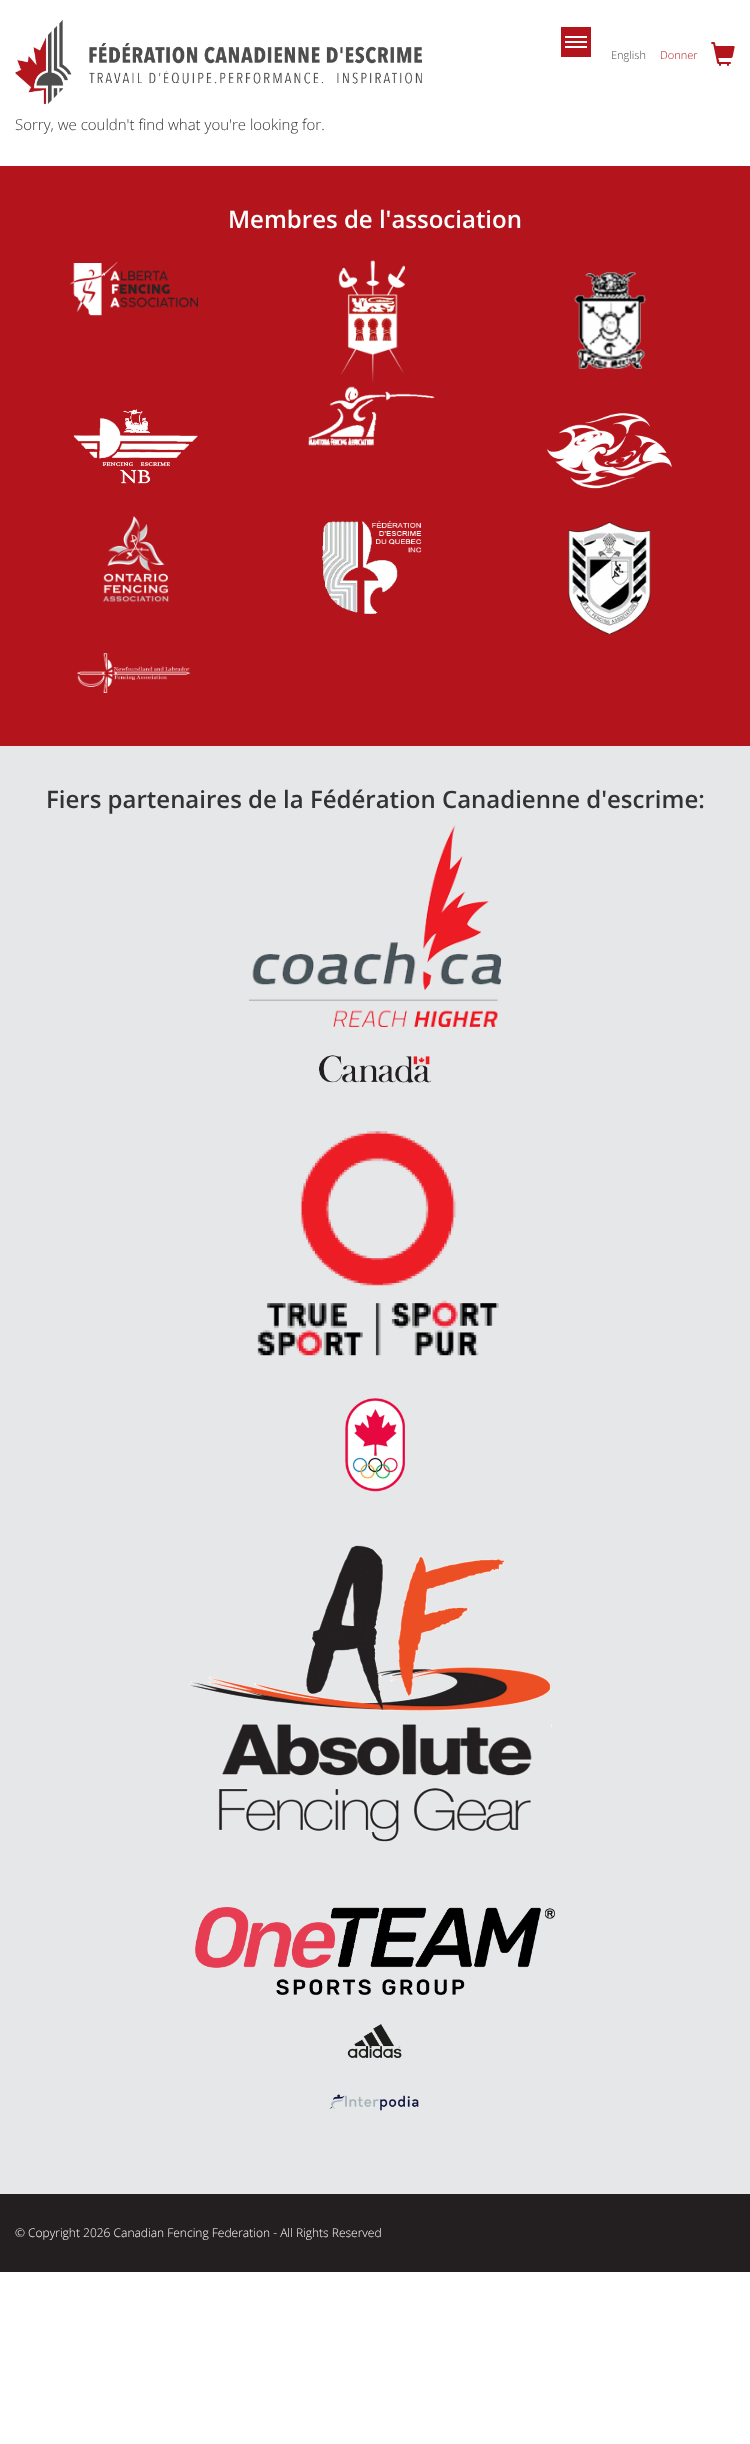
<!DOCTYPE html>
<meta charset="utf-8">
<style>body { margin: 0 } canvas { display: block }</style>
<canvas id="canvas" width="750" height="2444"></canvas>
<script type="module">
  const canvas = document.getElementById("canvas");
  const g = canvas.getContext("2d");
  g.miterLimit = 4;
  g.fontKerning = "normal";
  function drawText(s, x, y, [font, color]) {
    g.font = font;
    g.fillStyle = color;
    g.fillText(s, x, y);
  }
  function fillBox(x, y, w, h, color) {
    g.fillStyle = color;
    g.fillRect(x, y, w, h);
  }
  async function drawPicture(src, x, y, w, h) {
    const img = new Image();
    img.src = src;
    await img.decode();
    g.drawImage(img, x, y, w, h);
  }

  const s1 = ["300 11px Open Sans", "#444444"];
  const s2 = ["300 11px Open Sans", "#B4151C"];
  const s3 = ["300 15px Open Sans", "#333333"];
  const s4 = ["600 24px Open Sans", "#FFFFFF"];
  const s5 = ["600 24px Open Sans", "#333333"];
  const s6 = ["300 12px Open Sans", "#FFFFFF"];

  fillBox(0, 0, 750, 2444, "#FFFFFF");
  await drawPicture("pic1.png", 15, 20, 407, 84);
  fillBox(561, 27, 30, 30, "#B4151C");
  fillBox(565, 36, 22, 2, "#FFFFFF");
  fillBox(565, 41, 22, 2, "#FFFFFF");
  fillBox(565, 46, 22, 2, "#FFFFFF");
  drawText("English", 611, 59, s1);
  drawText("Donner", 660, 59, s2);
  await drawPicture("pic2.png", 711, 42, 24, 24);
  drawText("Sorry, we couldn't find what you're looking for.", 15, 130, s3);
  fillBox(0, 166, 750, 580, "#B4151C");
  drawText("Membres de l'association", 228, 228, s4);
  await drawPicture("pic3.png", 70, 262, 128, 54);
  await drawPicture("pic4.png", 338, 260, 67, 122);
  await drawPicture("pic5.png", 574, 272, 72, 97);
  await drawPicture("pic6.png", 73, 409, 125, 75);
  await drawPicture("pic7.png", 308, 386, 127, 60);
  await drawPicture("pic8.png", 547, 413, 125, 76);
  await drawPicture("pic9.png", 103, 516, 66, 86);
  await drawPicture("pic10.png", 322, 521, 100, 93);
  await drawPicture("pic11.png", 568, 522, 83, 112);
  await drawPicture("pic12.png", 77, 653, 114, 40);
  fillBox(0, 746, 750, 1448, "#E6E7E8");
  drawText("Fiers partenaires de la Fédération Canadienne d'escrime:", 46, 808, s5);
  await drawPicture("pic13.png", 249, 825, 252, 202);
  await drawPicture("pic14.png", 319, 1055, 112, 28);
  await drawPicture("pic15.png", 257, 1131, 242, 225);
  await drawPicture("pic16.png", 345, 1398, 60, 94);
  await drawPicture("pic17.png", 189, 1545, 363, 297);
  await drawPicture("pic18.png", 195, 1907, 360, 88);
  await drawPicture("pic19.png", 347, 2024, 55, 35);
  await drawPicture("pic20.png", 329, 2094, 90, 17);
  fillBox(0, 2194, 750, 78, "#231F20");
  drawText("© Copyright 2026 Canadian Fencing Federation - All Rights Reserved", 15, 2237, s6);
</script>
